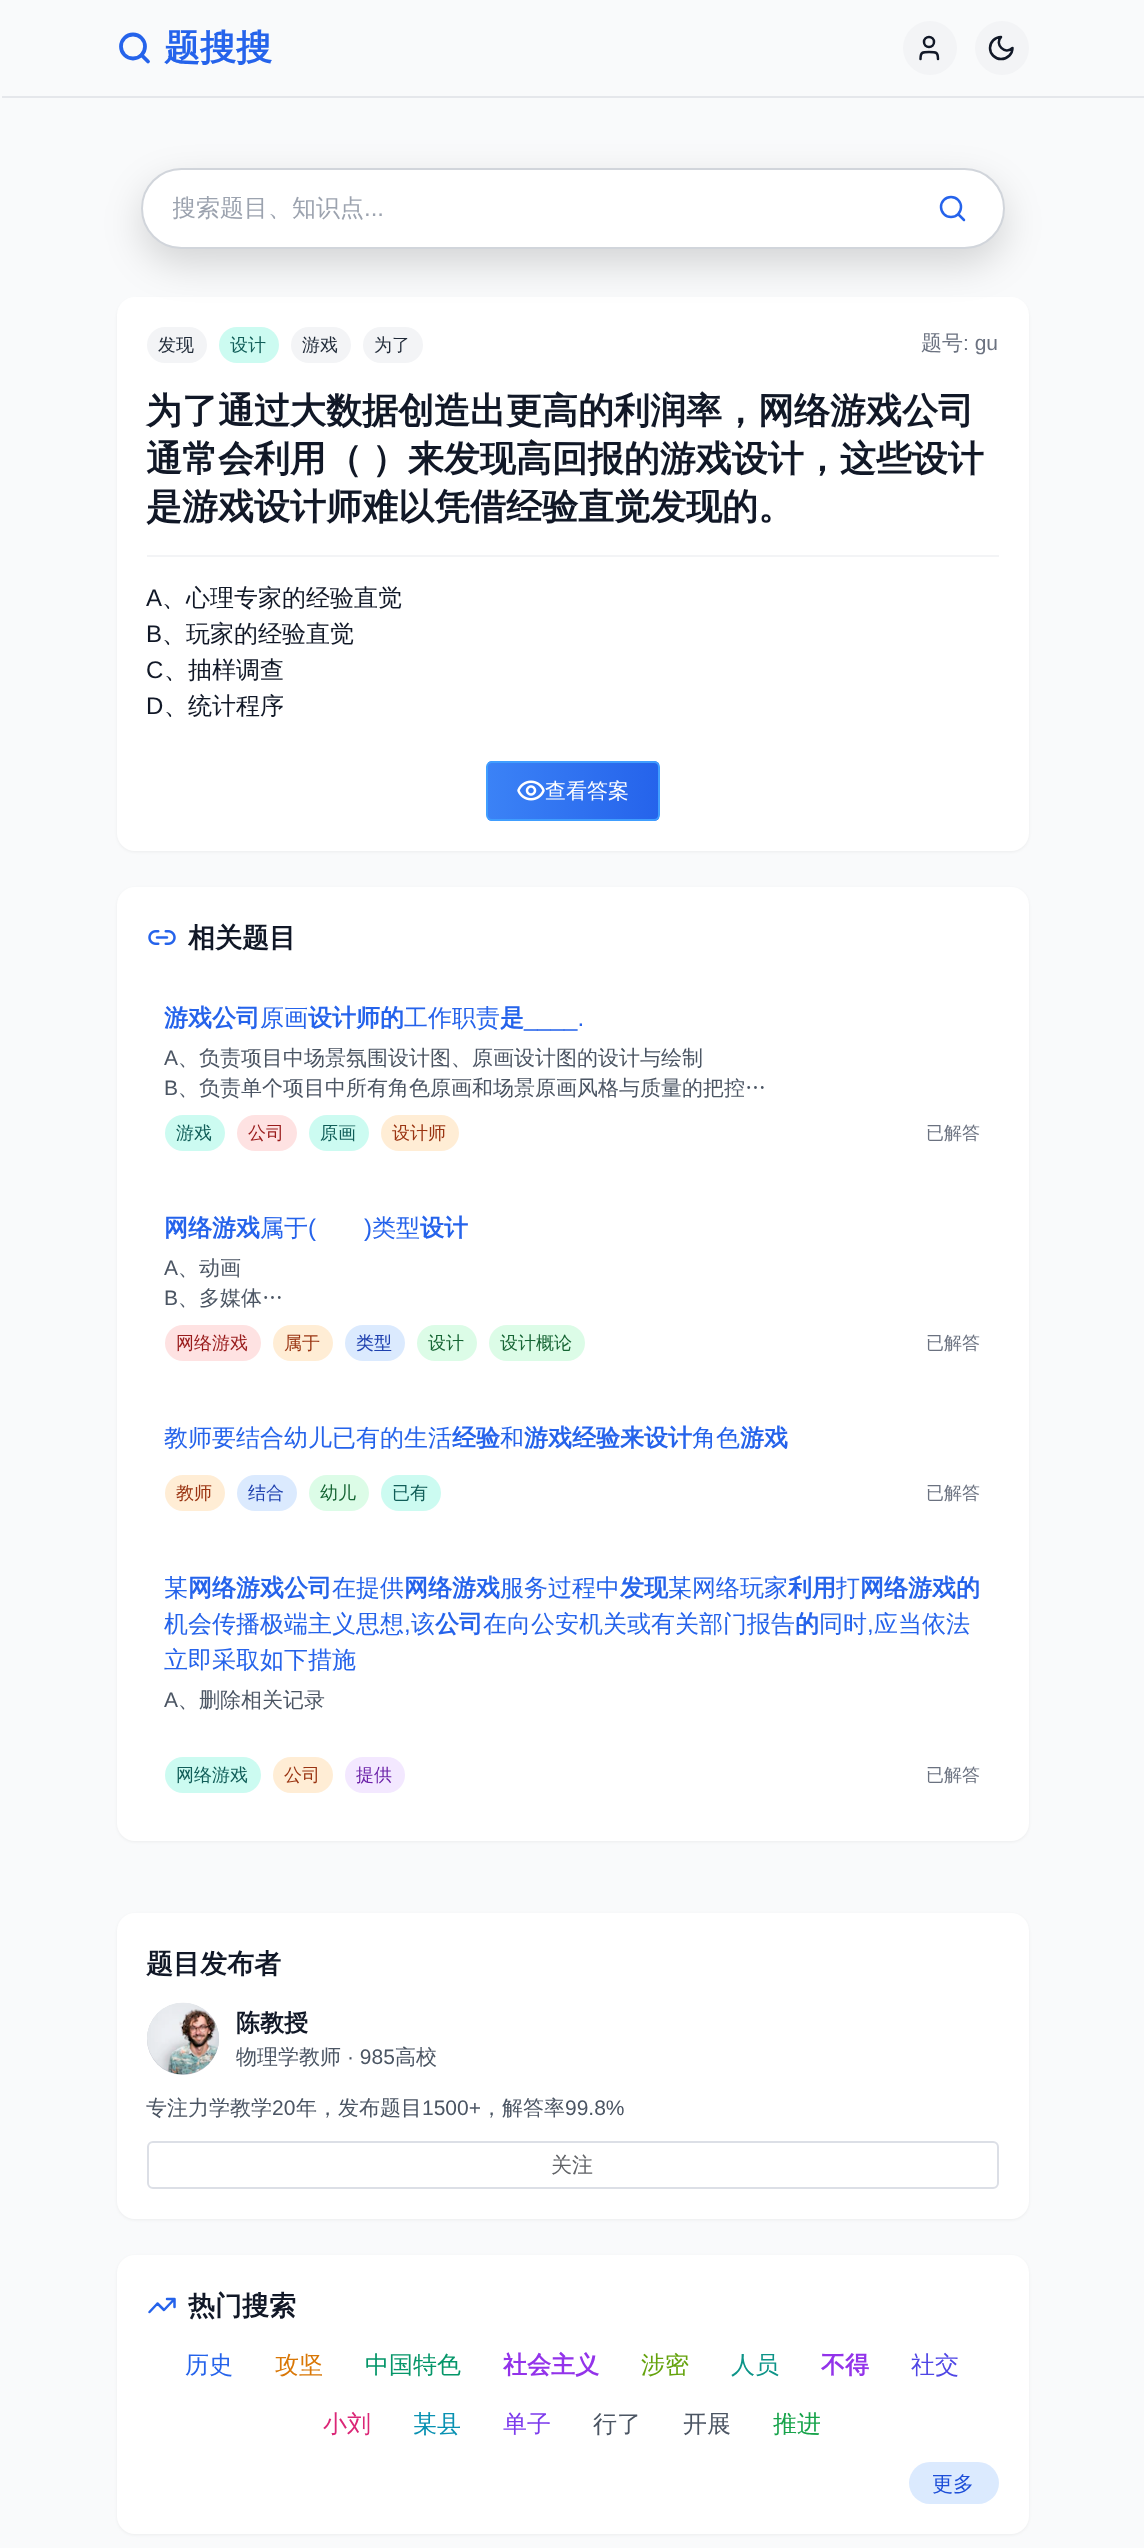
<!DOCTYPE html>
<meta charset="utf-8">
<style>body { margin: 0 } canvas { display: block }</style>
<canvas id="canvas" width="1144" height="2548"></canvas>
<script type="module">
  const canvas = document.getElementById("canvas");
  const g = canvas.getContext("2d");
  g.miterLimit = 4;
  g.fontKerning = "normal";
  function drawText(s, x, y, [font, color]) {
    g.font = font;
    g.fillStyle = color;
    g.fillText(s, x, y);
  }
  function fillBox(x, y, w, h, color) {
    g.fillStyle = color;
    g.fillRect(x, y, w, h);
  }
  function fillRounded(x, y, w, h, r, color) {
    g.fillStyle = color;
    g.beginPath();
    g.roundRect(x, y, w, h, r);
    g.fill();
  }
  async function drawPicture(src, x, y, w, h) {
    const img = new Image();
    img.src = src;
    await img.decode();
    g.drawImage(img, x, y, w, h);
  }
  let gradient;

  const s1 = ["bold 36px WenQuanYi Zen Hei", "#2563EB"];
  const s2 = ["500 24px WenQuanYi Zen Hei", "#9CA3AF"];
  const s3 = ["24px Liberation Sans", "#9CA3AF"];
  const s4 = ["500 18px WenQuanYi Zen Hei", "#1F2937"];
  const s5 = ["500 18px WenQuanYi Zen Hei", "#115E59"];
  const s6 = ["500 21px WenQuanYi Zen Hei", "#6B7280"];
  const s7 = ["21px Liberation Sans", "#6B7280"];
  const s8 = ["bold 36px WenQuanYi Zen Hei", "#111827"];
  const s9 = ["24px Liberation Sans", "#111827"];
  const s10 = ["500 24px WenQuanYi Zen Hei", "#111827"];
  const s11 = ["500 21px WenQuanYi Zen Hei", "#FFFFFF"];
  const s12 = ["bold 27px WenQuanYi Zen Hei", "#111827"];
  const s13 = ["bold 24px WenQuanYi Zen Hei", "#2563EB"];
  const s14 = ["500 24px WenQuanYi Zen Hei", "#2563EB"];
  const s15 = ["24px Liberation Sans", "#2563EB"];
  const s16 = ["21px Liberation Sans", "#4B5563"];
  const s17 = ["500 21px WenQuanYi Zen Hei", "#4B5563"];
  const s18 = ["500 18px WenQuanYi Zen Hei", "#991B1B"];
  const s19 = ["500 18px WenQuanYi Zen Hei", "#9A3412"];
  const s20 = ["500 18px WenQuanYi Zen Hei", "#6B7280"];
  const s21 = ["500 18px WenQuanYi Zen Hei", "#1E40AF"];
  const s22 = ["500 18px WenQuanYi Zen Hei", "#166534"];
  const s23 = ["500 18px WenQuanYi Zen Hei", "#6B21A8"];
  const s24 = ["bold 24px WenQuanYi Zen Hei", "#111827"];
  const s25 = ["500 21px WenQuanYi Zen Hei", "#606266"];
  const s26 = ["500 24px WenQuanYi Zen Hei", "#D97706"];
  const s27 = ["500 24px WenQuanYi Zen Hei", "#059669"];
  const s28 = ["bold 24px WenQuanYi Zen Hei", "#9333EA"];
  const s29 = ["500 24px WenQuanYi Zen Hei", "#65A30D"];
  const s30 = ["500 24px WenQuanYi Zen Hei", "#0D9488"];
  const s31 = ["500 24px WenQuanYi Zen Hei", "#4F46E5"];
  const s32 = ["500 24px WenQuanYi Zen Hei", "#DB2777"];
  const s33 = ["500 24px WenQuanYi Zen Hei", "#0891B2"];
  const s34 = ["500 24px WenQuanYi Zen Hei", "#7C3AED"];
  const s35 = ["500 24px WenQuanYi Zen Hei", "#4B5563"];
  const s36 = ["500 24px WenQuanYi Zen Hei", "#16A34A"];
  const s37 = ["500 21px WenQuanYi Zen Hei", "#1D4ED8"];

  fillBox(0, 0, 1144, 2548, "#F9FAFB");
  fillBox(2, 96, 1142, 2, "#E5E7EB");
  g.beginPath();
  g.arc(133, 46.5, 12, 0, Math.PI * 2);
  g.strokeStyle = "#2563EB";
  g.lineWidth = 3.8;
  g.stroke();
  g.beginPath();
  g.moveTo(148, 61.5);
  g.lineTo(141.5, 55);
  g.lineCap = "round";
  g.lineJoin = "round";
  g.stroke();
  drawText("题搜搜", 164, 60, s1);
  g.fillStyle = "#F3F4F6";
  g.beginPath();
  g.arc(930, 48, 27, 0, Math.PI * 2);
  g.fill();
  g.beginPath();
  g.moveTo(938, 59);
  g.bezierCurveTo(938, 52, 936, 52, 929, 52);
  g.bezierCurveTo(922.5, 52, 920.5, 52, 920.5, 59);
  g.strokeStyle = "#111827";
  g.lineWidth = 2.5;
  g.stroke();
  g.beginPath();
  g.arc(929, 42, 5, 0, Math.PI * 2);
  g.stroke();
  g.beginPath();
  g.arc(1002, 48, 27, 0, Math.PI * 2);
  g.fill();
  g.beginPath();
  g.moveTo(1001, 37);
  g.bezierCurveTo(994, 44, 1005, 55.5, 1012.5, 48);
  g.bezierCurveTo(1012.5, 54, 1007.5, 59, 1001, 59);
  g.bezierCurveTo(995, 59, 990, 54, 990, 48);
  g.bezierCurveTo(990, 42, 995, 37, 1001, 37);
  g.closePath();
  g.stroke();
  g.fillStyle = "rgba(0, 0, 0, 0.05)";
  g.filter = "blur(1.5px)";
  g.beginPath();
  g.roundRect(117, 299, 912, 553, 18);
  g.fill();
  g.filter = "none";
  fillRounded(117, 297, 912, 554, 18, "#FFFFFF");
  g.fillStyle = "rgba(0, 0, 0, 0.15)";
  g.filter = "blur(19px)";
  g.beginPath();
  g.roundRect(141, 183, 864, 81, 40.5);
  g.fill();
  g.filter = "none";
  g.fillStyle = "#FFFFFF";
  g.beginPath();
  g.roundRect(142, 169, 862, 79, 39.5);
  g.fill();
  g.strokeStyle = "#D1D5DB";
  g.lineWidth = 2;
  g.lineJoin = "miter";
  g.stroke();
  g.save();
  g.beginPath();
  g.rect(173, 194, 753, 31);
  g.clip();
  drawText("搜索题目、知识点", 172, 216, s2);
  g.restore();
  drawText("...", 364, 216, s3);
  g.beginPath();
  g.arc(951, 207, 10, 0, Math.PI * 2);
  g.strokeStyle = "#2563EB";
  g.lineWidth = 2.5;
  g.stroke();
  g.beginPath();
  g.moveTo(964, 220);
  g.lineTo(958.5, 214.5);
  g.lineJoin = "round";
  g.stroke();
  fillRounded(147, 327, 60, 36, 18, "#F3F4F6");
  drawText("发现", 158, 351, s4);
  fillRounded(219, 327, 60, 36, 18, "#CCFBF1");
  drawText("设计", 230, 351, s5);
  fillRounded(291, 327, 60, 36, 18, "#F3F4F6");
  drawText("游戏", 302, 351, s4);
  fillRounded(363, 327, 60, 36, 18, "#F3F4F6");
  drawText("为了", 374, 351, s4);
  drawText("题号", 921, 350, s6);
  drawText(": gu", 963, 350, s7);
  drawText("为了通过大数据创造出更高的利润率，网络游戏公司", 146, 423, s8);
  g.wordSpacing = "-1px";
  drawText("通常会利用（ ）来发现高回报的游戏设计，这些设计", 146, 471, s8);
  g.wordSpacing = "0px";
  drawText("是游戏设计师难以凭借经验直觉发现的。", 146, 519, s8);
  fillBox(147, 555, 852, 2, "#F3F4F6");
  drawText("A", 146, 606, s9);
  drawText("、心理专家的经验直觉", 162, 606, s10);
  drawText("B", 146, 642, s9);
  drawText("、玩家的经验直觉", 162, 642, s10);
  drawText("C", 146, 678, s9);
  drawText("、抽样调查", 164, 678, s10);
  drawText("D", 146, 714, s9);
  drawText("、统计程序", 164, 714, s10);
  g.save();
  g.beginPath();
  g.roundRect(486, 761, 174, 60, 6);
  g.clip();
  gradient = g.createLinearGradient(488, 791, 659, 791);
  gradient.addColorStop(0, "#3B82F6");
  gradient.addColorStop(1, "#2563EB");
  g.fillStyle = gradient;
  g.fillRect(488, 761, 171, 60);
  g.restore();
  g.beginPath();
  g.roundRect(487, 762, 172, 58, 5);
  g.strokeStyle = "#409EFF";
  g.lineWidth = 2;
  g.lineJoin = "miter";
  g.stroke();
  await drawPicture("pic1.png", 517, 780, 28, 21);
  drawText("查看答案", 545, 798, s11);
  g.fillStyle = "rgba(0, 0, 0, 0.05)";
  g.filter = "blur(1.5px)";
  g.beginPath();
  g.roundRect(117, 888, 912, 954, 18);
  g.fill();
  g.filter = "none";
  fillRounded(117, 887, 912, 954, 18, "#FFFFFF");
  await drawPicture("pic2.png", 148, 930, 28, 15);
  drawText("相关题目", 188, 947, s12);
  drawText("游戏公司", 164, 1026, s13);
  drawText("原画", 260, 1026, s14);
  drawText("设计师的", 308, 1026, s13);
  drawText("工作职责", 404, 1026, s14);
  drawText("是", 500, 1026, s13);
  drawText("____.", 524, 1026, s15);
  drawText("A", 164, 1065, s16);
  drawText("、负责项目中场景氛围设计图、原画设计图的设计与绘制", 178, 1065, s17);
  drawText("B", 164, 1095, s16);
  drawText("、负责单个项目中所有角色原画和场景原画风格与质量的把控…", 178, 1095, s17);
  fillRounded(165, 1115, 60, 36, 18, "#CCFBF1");
  drawText("游戏", 176, 1139, s5);
  fillRounded(237, 1115, 60, 36, 18, "#FEE2E2");
  drawText("公司", 248, 1139, s18);
  fillRounded(309, 1115, 60, 36, 18, "#CCFBF1");
  drawText("原画", 320, 1139, s5);
  fillRounded(381, 1115, 78, 36, 18, "#FFEDD5");
  drawText("设计师", 392, 1139, s19);
  drawText("已解答", 926, 1139, s20);
  drawText("网络游戏", 164, 1236, s13);
  drawText("属于", 260, 1236, s14);
  drawText("(", 308, 1236, s15);
  drawText(")", 364, 1236, s15);
  drawText("类型", 372, 1236, s14);
  drawText("设计", 420, 1236, s13);
  drawText("A", 164, 1275, s16);
  drawText("、动画", 178, 1275, s17);
  drawText("B", 164, 1305, s16);
  drawText("、多媒体…", 178, 1305, s17);
  fillRounded(165, 1325, 96, 36, 18, "#FEE2E2");
  drawText("网络游戏", 176, 1349, s18);
  fillRounded(273, 1325, 60, 36, 18, "#FFEDD5");
  drawText("属于", 284, 1349, s19);
  fillRounded(345, 1325, 60, 36, 18, "#DBEAFE");
  drawText("类型", 356, 1349, s21);
  fillRounded(417, 1325, 60, 36, 18, "#DCFCE7");
  drawText("设计", 428, 1349, s22);
  fillRounded(489, 1325, 96, 36, 18, "#DCFCE7");
  drawText("设计概论", 500, 1349, s22);
  drawText("已解答", 926, 1349, s20);
  drawText("教师要结合幼儿已有的生活", 164, 1446, s14);
  drawText("经验", 452, 1446, s13);
  drawText("和", 500, 1446, s14);
  drawText("游戏经验来设计", 524, 1446, s13);
  drawText("角色", 692, 1446, s14);
  drawText("游戏", 740, 1446, s13);
  fillRounded(165, 1475, 60, 36, 18, "#FFEDD5");
  drawText("教师", 176, 1499, s19);
  fillRounded(237, 1475, 60, 36, 18, "#DBEAFE");
  drawText("结合", 248, 1499, s21);
  fillRounded(309, 1475, 60, 36, 18, "#DCFCE7");
  drawText("幼儿", 320, 1499, s22);
  fillRounded(381, 1475, 60, 36, 18, "#CCFBF1");
  drawText("已有", 392, 1499, s5);
  drawText("已解答", 926, 1499, s20);
  drawText("某", 164, 1596, s14);
  drawText("网络游戏公司", 188, 1596, s13);
  drawText("在提供", 332, 1596, s14);
  drawText("网络游戏", 404, 1596, s13);
  drawText("服务过程中", 500, 1596, s14);
  drawText("发现", 620, 1596, s13);
  drawText("某网络玩家", 668, 1596, s14);
  drawText("利用", 788, 1596, s13);
  drawText("打", 836, 1596, s14);
  drawText("网络游戏的", 860, 1596, s13);
  drawText("机会传播极端主义思想", 164, 1632, s14);
  drawText(",", 404, 1632, s15);
  drawText("该", 411, 1632, s14);
  drawText("公司", 435, 1632, s13);
  drawText("在向公安机关或有关部门报告", 483, 1632, s14);
  drawText("的", 795, 1632, s13);
  drawText("同时", 819, 1632, s14);
  drawText(",", 867, 1632, s15);
  drawText("应当依法", 874, 1632, s14);
  drawText("立即采取如下措施", 164, 1668, s14);
  drawText("A", 164, 1707, s16);
  drawText("、删除相关记录", 178, 1707, s17);
  fillRounded(165, 1757, 96, 36, 18, "#CCFBF1");
  drawText("网络游戏", 176, 1781, s5);
  fillRounded(273, 1757, 60, 36, 18, "#FFEDD5");
  drawText("公司", 284, 1781, s19);
  fillRounded(345, 1757, 60, 36, 18, "#F3E8FF");
  drawText("提供", 356, 1781, s23);
  drawText("已解答", 926, 1781, s20);
  g.fillStyle = "rgba(0, 0, 0, 0.05)";
  g.filter = "blur(1.5px)";
  g.beginPath();
  g.roundRect(117, 1914, 912, 306, 18);
  g.fill();
  g.filter = "none";
  fillRounded(117, 1913, 912, 306, 18, "#FFFFFF");
  drawText("题目发布者", 146, 1973, s12);
  g.fillStyle = "#C0C4CC";
  g.beginPath();
  g.arc(183, 2039, 36, 0, Math.PI * 2);
  g.fill();
  await drawPicture("pic3.png", 147, 2002, 72, 73);
  drawText("陈教授", 236, 2031, s24);
  drawText("物理学教师", 236, 2064, s17);
  drawText("· 985", 347, 2064, s16);
  drawText("高校", 395, 2064, s17);
  drawText("专注力学教学", 146, 2115, s17);
  drawText("20", 272, 2115, s16);
  drawText("年，发布题目", 296, 2115, s17);
  drawText("1500+", 422, 2115, s16);
  drawText("，解答率", 481, 2115, s17);
  drawText("99.8%", 565, 2115, s16);
  g.beginPath();
  g.roundRect(148, 2142, 850, 46, 5);
  g.strokeStyle = "#DCDFE6";
  g.stroke();
  drawText("关注", 551, 2172, s25);
  g.fillStyle = "rgba(0, 0, 0, 0.05)";
  g.filter = "blur(1.5px)";
  g.beginPath();
  g.roundRect(117, 2256, 912, 279, 18);
  g.fill();
  g.filter = "none";
  fillRounded(117, 2255, 912, 279, 18, "#FFFFFF");
  g.beginPath();
  g.moveTo(174.5, 2299);
  g.lineTo(164, 2310);
  g.lineTo(157.5, 2303.5);
  g.lineTo(149.5, 2312);
  g.moveTo(167, 2299);
  g.lineTo(174.5, 2299);
  g.lineTo(174.5, 2307);
  g.strokeStyle = "#2563EB";
  g.lineWidth = 2.5;
  g.lineJoin = "round";
  g.stroke();
  drawText("热门搜索", 188, 2315, s12);
  drawText("历史", 185, 2373, s14);
  drawText("攻坚", 275, 2373, s26);
  drawText("中国特色", 365, 2373, s27);
  drawText("社会主义", 503, 2373, s28);
  drawText("涉密", 641, 2373, s29);
  drawText("人员", 731, 2373, s30);
  drawText("不得", 821, 2373, s28);
  drawText("社交", 911, 2373, s31);
  drawText("小刘", 323, 2432, s32);
  drawText("某县", 413, 2432, s33);
  drawText("单子", 503, 2432, s34);
  drawText("行了", 593, 2432, s35);
  drawText("开展", 683, 2432, s35);
  drawText("推进", 773, 2432, s36);
  fillRounded(909, 2462, 90, 42, 21, "#DBEAFE");
  drawText("更多", 932, 2491, s37);
</script>
